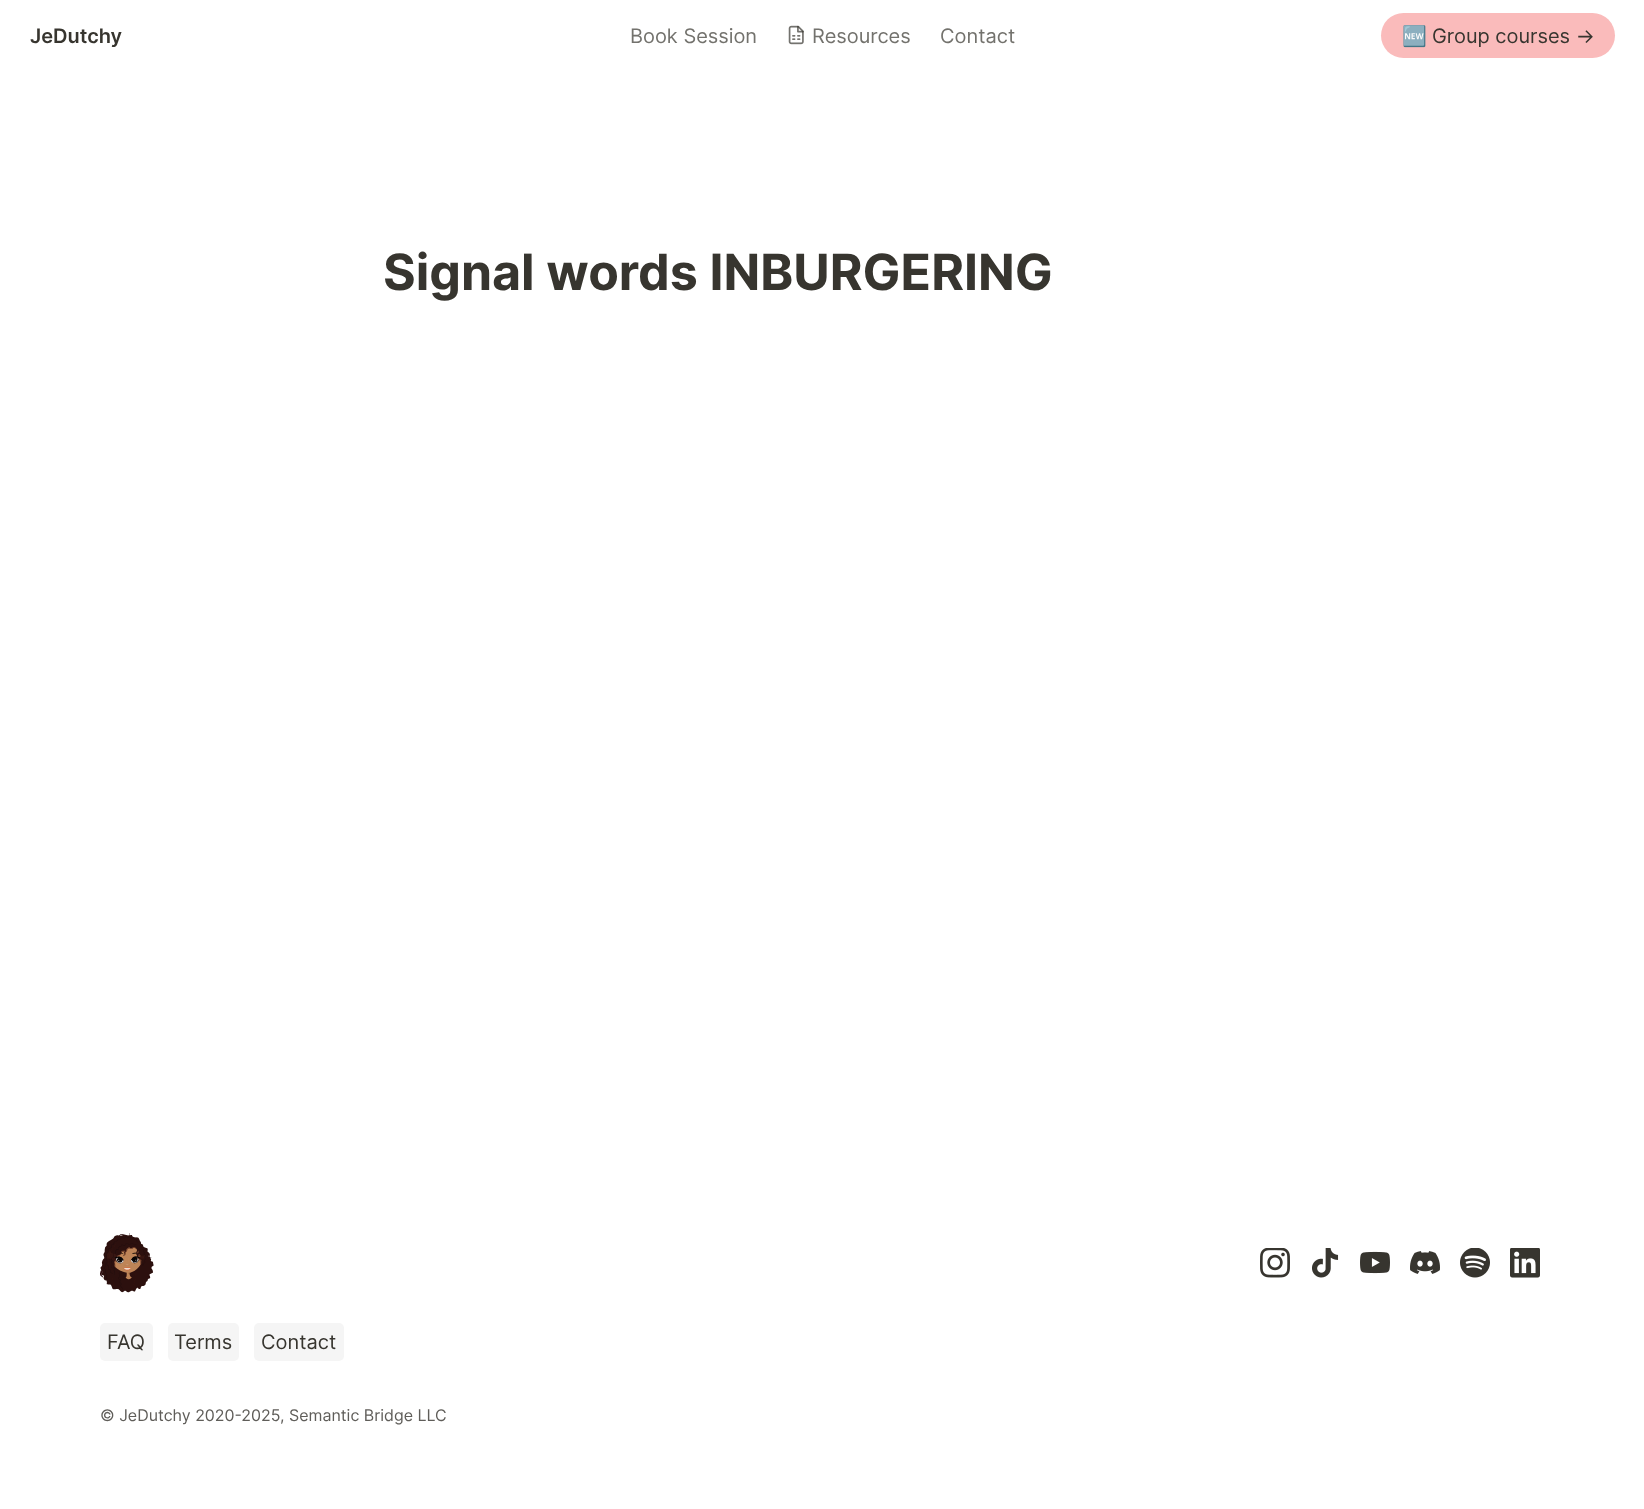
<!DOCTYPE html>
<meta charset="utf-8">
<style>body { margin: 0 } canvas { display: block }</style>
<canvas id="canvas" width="1644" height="1509"></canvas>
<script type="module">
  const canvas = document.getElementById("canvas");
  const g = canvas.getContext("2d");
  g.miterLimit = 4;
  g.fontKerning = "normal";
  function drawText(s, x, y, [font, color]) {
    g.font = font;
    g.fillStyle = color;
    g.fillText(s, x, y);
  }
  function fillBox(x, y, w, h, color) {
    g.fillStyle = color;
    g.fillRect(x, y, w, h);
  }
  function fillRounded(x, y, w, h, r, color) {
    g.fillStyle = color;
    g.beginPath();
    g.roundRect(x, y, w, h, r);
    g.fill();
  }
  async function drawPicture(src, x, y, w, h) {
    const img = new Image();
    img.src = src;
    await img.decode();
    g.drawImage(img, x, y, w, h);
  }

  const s1 = ["600 20px Inter", "#37352F"];
  const s2 = ["20px Inter", "#73726D"];
  const s3 = ["20px Noto Color Emoji", "#37352F"];
  const s4 = ["20px Inter", "#37352F"];
  const s5 = ["bold 50px Inter", "#37352F"];
  const s6 = ["16px Inter", "#5F5D59"];

  fillBox(0, 0, 1644, 1509, "#FFFFFF");
  drawText("JeDutchy", 30, 43, s1);
  drawText("Book Session", 630, 43, s2);
  await drawPicture("pic1.png", 788, 25, 16, 20);
  drawText("Resources", 812, 43, s2);
  drawText("Contact", 940, 43, s2);
  fillRounded(1381, 13, 234, 45, 22.5, "#FABBBB");
  drawText("🆕", 1402, 43, s3);
  drawText("Group courses ->", 1432, 43, s4);
  drawText("Signal words INBURGERING", 383, 290, s5);
  await drawPicture("pic2.png", 100, 1233, 54, 60);
  await drawPicture("pic3.png", 1260, 1248, 30, 30);
  await drawPicture("pic4.png", 1312, 1248, 27, 30);
  await drawPicture("pic5.png", 1360, 1251, 30, 23);
  await drawPicture("pic6.png", 1410, 1251, 30, 23);
  await drawPicture("pic7.png", 1460, 1248, 30, 30);
  await drawPicture("pic8.png", 1510, 1248, 30, 30);
  fillRounded(100, 1323, 53, 38, 5, "#F5F5F5");
  drawText("FAQ", 107, 1349, s4);
  fillRounded(168, 1323, 71, 38, 5, "#F5F5F5");
  drawText("Terms", 174, 1349, s4);
  fillRounded(254, 1323, 90, 38, 5, "#F5F5F5");
  drawText("Contact", 261, 1349, s4);
  drawText("© JeDutchy 2020-2025, Semantic Bridge LLC", 100, 1421, s6);
</script>
